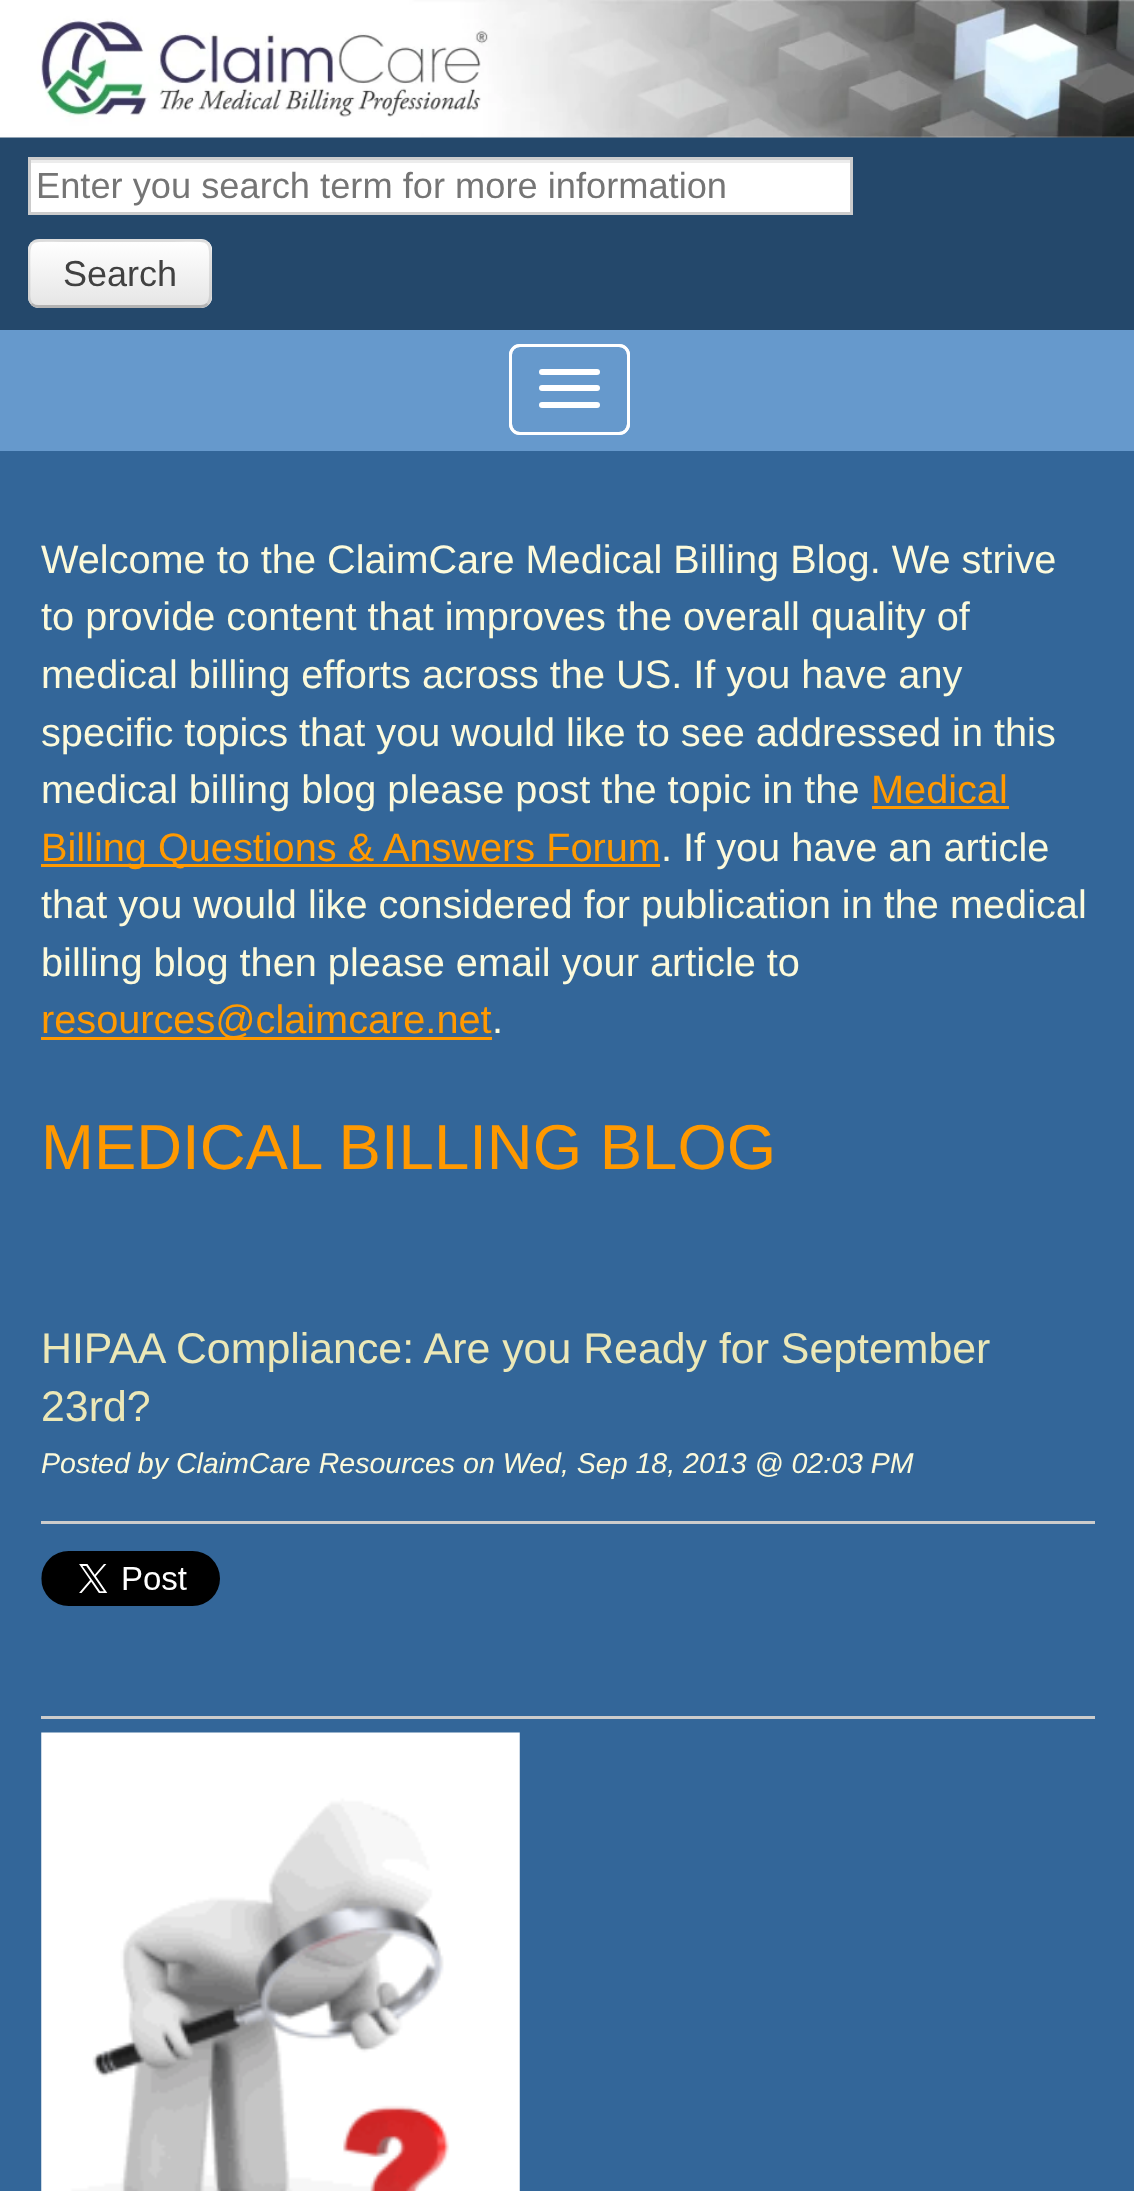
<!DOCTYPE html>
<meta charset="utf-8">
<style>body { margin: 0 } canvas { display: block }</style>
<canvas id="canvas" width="1134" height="2191"></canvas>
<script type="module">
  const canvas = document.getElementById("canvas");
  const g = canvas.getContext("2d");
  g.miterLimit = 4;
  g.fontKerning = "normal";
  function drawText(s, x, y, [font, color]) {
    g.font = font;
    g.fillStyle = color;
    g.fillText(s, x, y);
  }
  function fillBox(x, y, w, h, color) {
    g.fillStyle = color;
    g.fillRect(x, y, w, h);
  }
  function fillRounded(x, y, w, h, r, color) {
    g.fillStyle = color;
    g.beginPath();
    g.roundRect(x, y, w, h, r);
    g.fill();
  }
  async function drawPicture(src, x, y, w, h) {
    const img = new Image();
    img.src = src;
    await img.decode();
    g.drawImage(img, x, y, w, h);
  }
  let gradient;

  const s1 = ["36.25px Liberation Sans", "#757575"];
  const s2 = ["36px Liberation Sans", "#414141"];
  const s3 = ["39.7px Liberation Sans", "#FCFADB"];
  const s4 = ["39.7px Liberation Sans", "#FF9900"];
  const s5 = ["63.5px Liberation Sans", "#FF9900"];
  const s6 = ["42.85px Liberation Sans", "#ECE8B7"];
  const s7 = ["italic 28.55px Liberation Sans", "#FCFADB"];

  fillBox(0, 0, 1134, 2191, "#24486B");
  await drawPicture("pic1.png", 0, 0, 1134, 138);
  fillBox(31, 163, 819, 49, "#FFFFFF");
  fillBox(30, 160, 820, 3, "#ECECEC");
  g.strokeStyle = "#CCCCCC";
  g.lineWidth = 3;
  g.strokeRect(29.5, 158.5, 822, 55);
  drawText("Enter you search term for more information", 36, 198, s1);
  fillRounded(28, 239, 184, 69, 11, "#F5F5F5");
  g.save();
  g.beginPath();
  g.roundRect(28, 239, 184, 69, 11);
  g.clip();
  gradient = g.createLinearGradient(120, 242, 120, 305);
  gradient.addColorStop(0, "#FFFFFF");
  gradient.addColorStop(1, "#E6E6E6");
  g.fillStyle = gradient;
  g.fillRect(28, 242, 184, 63);
  g.restore();
  g.beginPath();
  g.moveTo(207.5, 304);
  g.bezierCurveTo(206, 305.5, 203.5, 306.5, 201, 306.5);
  g.lineTo(38.5, 306.5);
  g.bezierCurveTo(36, 306.5, 33.5, 305.5, 31.5, 304);
  g.strokeStyle = "#B3B3B3";
  g.lineWidth = 2.8;
  g.stroke();
  g.beginPath();
  g.moveTo(31.5, 304);
  g.bezierCurveTo(28, 300, 29, 294, 29, 289);
  g.lineTo(29, 273.5);
  g.bezierCurveTo(29, 235.5, 25, 240.5, 65.5, 240.5);
  g.lineTo(173.5, 240.5);
  g.bezierCurveTo(214, 240.5, 210.5, 235.5, 210.5, 273.5);
  g.lineTo(210.5, 289);
  g.bezierCurveTo(210.5, 294, 211.5, 300, 207.5, 304);
  g.strokeStyle = "rgba(0, 0, 0, 0.1)";
  g.stroke();
  drawText("Search", 63, 286, s2);
  fillBox(0, 330, 1134, 121, "#6699CC");
  g.beginPath();
  g.roundRect(510.5, 345.5, 118, 88, 9.5);
  g.strokeStyle = "#FFFFFF";
  g.lineWidth = 3;
  g.stroke();
  g.beginPath();
  g.roundRect(510.5, 345.5, 118, 88, 9.5);
  g.stroke();
  fillRounded(539, 385, 61, 6, 3, "#FFFFFF");
  fillRounded(539, 369, 61, 6, 3, "#FFFFFF");
  fillRounded(539, 402, 61, 6, 3, "#FFFFFF");
  fillBox(0, 451, 1134, 1740, "#336699");
  drawText("Welcome to the ClaimCare Medical Billing Blog. We strive", 41, 573, s3);
  drawText("to provide content that improves the overall quality of", 41, 630, s3);
  drawText("medical billing efforts across the US. If you have any", 41, 688, s3);
  drawText("specific topics that you would like to see addressed in this", 41, 746, s3);
  drawText("medical billing blog please post the topic in the", 41, 803, s3);
  drawText("Medical", 871, 803, s4);
  fillBox(872, 806, 137, 3, "#FF9900");
  fillBox(41, 864, 619, 3, "#FF9900");
  drawText("Billing Questions & Answers Forum", 41, 861, s4);
  drawText(". If you have an article", 661, 861, s3);
  drawText("that you would like considered for publication in the medical", 41, 918, s3);
  drawText("billing blog then please email your article to", 41, 976, s3);
  fillBox(41, 1037, 451, 3, "#FF9900");
  drawText("resources@claimcare.net", 41, 1033, s4);
  drawText(".", 492, 1033, s3);
  drawText("MEDICAL BILLING BLOG", 41, 1169, s5);
  drawText("HIPAA Compliance: Are you Ready for September", 41, 1363, s6);
  drawText("23rd?", 41, 1421, s6);
  drawText("Posted by ClaimCare Resources on Wed, Sep 18, 2013 @ 02:03 PM", 41, 1473, s7);
  fillBox(41, 1521, 1054, 3, "#CCCCCC");
  fillBox(41, 1716, 1054, 3, "#CCCCCC");
  await drawPicture("pic2.png", 41, 1551, 179, 55);
  await drawPicture("pic3.png", 41, 1732, 479, 459);
</script>
